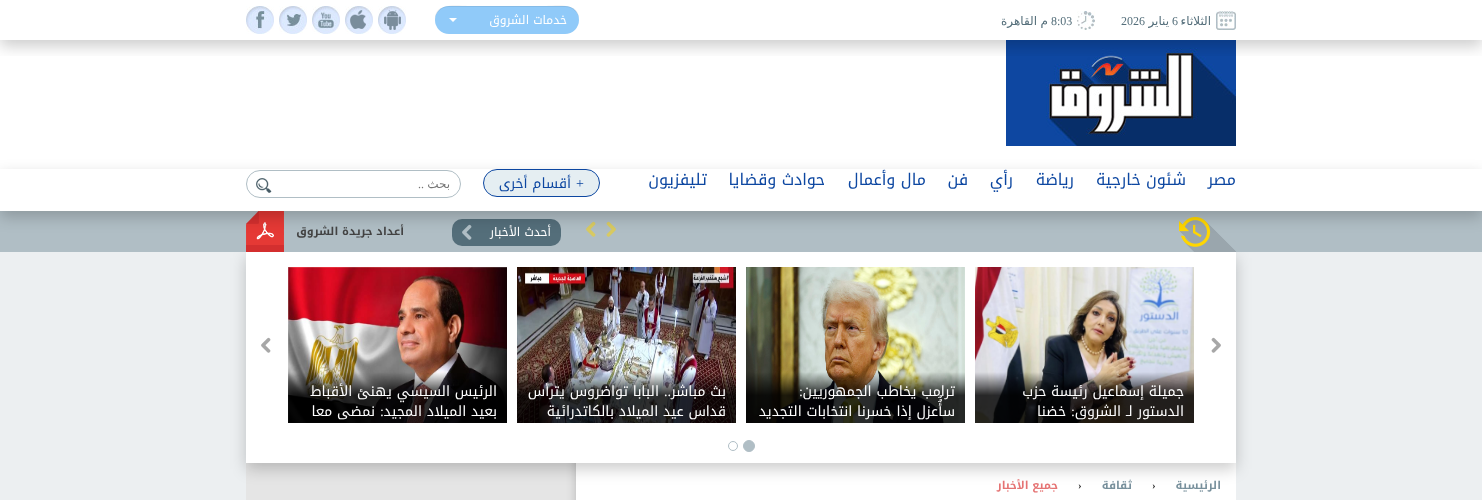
<!DOCTYPE html>
<meta charset="utf-8">
<style>body { margin: 0 } canvas { display: block }</style>
<canvas id="canvas" width="1482" height="500"></canvas>
<script type="module">
  const canvas = document.getElementById("canvas");
  const g = canvas.getContext("2d");
  g.miterLimit = 4;
  g.fontKerning = "normal";
  function drawText(s, x, y, [font, color]) {
    g.font = font;
    g.fillStyle = color;
    g.fillText(s, x, y);
  }
  function fillBox(x, y, w, h, color) {
    g.fillStyle = color;
    g.fillRect(x, y, w, h);
  }
  function fillRounded(x, y, w, h, r, color) {
    g.fillStyle = color;
    g.beginPath();
    g.roundRect(x, y, w, h, r);
    g.fill();
  }
  async function drawPicture(src, x, y, w, h) {
    const img = new Image();
    img.src = src;
    await img.decode();
    g.drawImage(img, x, y, w, h);
  }

  const s1 = ["12px DejaVu Sans", "#546E7A"];
  const s2 = ["12px Liberation Serif", "#546E7A"];
  const s3 = ["12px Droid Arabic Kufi", "#FFFFFF"];
  const s4 = ["16px Droid Arabic Kufi", "#0D47A1"];
  const s5 = ["14px Liberation Serif", "#0D47A1"];
  const s6 = ["14px Droid Arabic Kufi", "#0D47A1"];
  const s7 = ["12px DejaVu Sans", "#757575"];
  const s8 = ["12px Liberation Serif", "#757575"];
  const s9 = ["bold 11px Droid Arabic Kufi", "#424242"];
  const s10 = ["14px Droid Arabic Kufi", "#FFFFFF"];
  const s11 = ["14px Liberation Serif", "#FFFFFF"];
  const s12 = ["bold 11px Droid Arabic Kufi", "#78909C"];
  const s13 = ["bold 11px Liberation Serif", "#333333"];
  const s14 = ["bold 11px Droid Arabic Kufi", "#E57373"];

  fillBox(0, 0, 1482, 500, "#ECEFF1");
  fillBox(0, 0, 1482, 211, "#FFFFFF");
  await drawPicture("pic8.png", 1006, 40, 230, 106);
  g.save();
  g.beginPath();
  g.rect(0, 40, 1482, 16);
  g.clip();
  g.fillStyle = "rgba(0, 0, 0, 0.2)";
  g.filter = "blur(7.5px)";
  g.beginPath();
  g.rect(0, 6, 1482, 40);
  g.fill();
  g.filter = "none";
  g.restore();
  await drawPicture("pic1.png", 1216, 11, 20, 19);
  g.direction = "rtl";
  drawText("الثلاثاء", 1211, 25, s1);
  g.direction = "ltr";
  drawText("6", 1172, 25, s2);
  g.direction = "rtl";
  drawText("يناير", 1169, 25, s1);
  g.direction = "ltr";
  drawText("2026", 1121, 25, s2);
  await drawPicture("pic2.png", 1077, 11, 18, 19);
  drawText("8:03", 1051, 25, s2);
  g.direction = "rtl";
  drawText("م", 1048, 25, s1);
  drawText("القاهرة", 1037, 25, s1);
  fillRounded(435, 6, 144, 28, 14, "#90CAF9");
  g.fillStyle = "rgba(0, 0, 0, 0.07)";
  g.beginPath();
  g.moveTo(449, 7);
  g.lineTo(565, 7);
  g.bezierCurveTo(573, 7, 579, 13, 579, 20);
  g.bezierCurveTo(580, 2, 557, 6, 546, 6);
  g.lineTo(468, 6);
  g.bezierCurveTo(457, 6, 434, 2, 435, 20);
  g.bezierCurveTo(435, 13, 441, 7, 449, 7);
  g.closePath();
  g.fill();
  drawText("خدمات الشروق", 567, 24, s3);
  g.beginPath();
  g.moveTo(449, 18);
  g.lineTo(457, 18);
  g.lineTo(453, 22);
  g.closePath();
  g.fill();
  await drawPicture("pic3.png", 378, 6, 28, 28);
  await drawPicture("pic4.png", 345, 6, 28, 28);
  await drawPicture("pic5.png", 312, 6, 28, 28);
  await drawPicture("pic6.png", 279, 6, 28, 28);
  await drawPicture("pic7.png", 246, 6, 28, 28);
  await drawPicture("pic15.png", 246, 463, 990, 37);
  g.fillStyle = "rgba(0, 0, 0, 0.2)";
  g.filter = "blur(7.5px)";
  g.beginPath();
  g.rect(246, 258, 990, 211);
  g.fill();
  g.filter = "none";
  fillBox(0, 211, 1482, 41, "#B0BEC5");
  await drawPicture("pic10.png", 1179, 217, 57, 35);
  await drawPicture("pic11.png", 606, 221, 10, 16);
  await drawPicture("pic12.png", 586, 221, 10, 16);
  fillRounded(452, 219, 109, 27, 10, "#546E7A");
  await drawPicture("pic13.png", 462, 224, 10, 16);
  await drawPicture("pic14.png", 246, 211, 38, 41);
  g.save();
  g.beginPath();
  g.moveTo(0, 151);
  g.lineTo(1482, 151);
  g.lineTo(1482, 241);
  g.lineTo(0, 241);
  g.closePath();
  g.moveTo(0, 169);
  g.lineTo(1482, 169);
  g.lineTo(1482, 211);
  g.lineTo(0, 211);
  g.closePath();
  g.clip("evenodd");
  g.fillStyle = "rgba(0, 0, 0, 0.2)";
  g.filter = "blur(7.5px)";
  g.beginPath();
  g.rect(0, 175, 1482, 42);
  g.fill();
  g.filter = "none";
  g.restore();
  drawText("مصر", 1236, 185, s4);
  drawText("شئون خارجية", 1186, 185, s4);
  drawText("رياضة", 1074, 185, s4);
  drawText("رأي", 1013, 185, s4);
  drawText("فن", 968, 185, s4);
  drawText("مال وأعمال", 926, 185, s4);
  drawText("حوادث وقضايا", 825, 185, s4);
  drawText("تليفزيون", 707, 185, s4);
  g.fillStyle = "#E5EEF2";
  g.beginPath();
  g.roundRect(483.5, 169.5, 116, 27, 13.5);
  g.fill();
  g.strokeStyle = "#0D47A1";
  g.stroke();
  drawText("+", 584, 188, s5);
  drawText("أقسام أخرى", 571, 188, s6);
  g.beginPath();
  g.roundRect(246.5, 170.5, 214, 27, 13.5);
  g.strokeStyle = "#B0BEC5";
  g.stroke();
  drawText("بحث", 450, 188, s7);
  drawText("..", 424, 188, s8);
  await drawPicture("pic9.png", 256, 178, 16, 15);
  drawText("أحدث الأخبار", 551, 236, s3);
  drawText("أعداد جريدة الشروق", 404, 235, s9);
  fillBox(246, 252, 990, 211, "#FFFFFF");
  await drawPicture("pic16.png", 1211, 337, 10, 16);
  await drawPicture("pic17.png", 261, 337, 10, 16);
  await drawPicture("pic18.png", 975, 267, 219, 156);
  drawText("جميلة إسماعيل رئيسة حزب", 1184, 396, s10);
  drawText("الدستور لـ الشروق", 1184, 416, s10);
  drawText(":", 1075, 416, s11);
  drawText("خضنا", 1066, 416, s10);
  await drawPicture("pic19.png", 746, 267, 219, 156);
  drawText("ترامب يخاطب الجمهوريين", 955, 396, s10);
  drawText(":", 803, 396, s11);
  drawText("سأُُعزل إذا خسرنا انتخابات التجديد", 955, 416, s10);
  await drawPicture("pic20.png", 517, 267, 219, 156);
  drawText("..", 671, 396, s11);
  drawText("بث مباشر", 726, 396, s10);
  drawText("البابا تواضروس يترأس", 659, 396, s10);
  drawText("قداس عيد الميلاد بالكاتدرائية", 726, 416, s10);
  await drawPicture("pic21.png", 288, 267, 219, 156);
  drawText("الرئيس السيسي يهنئ الأقباط", 497, 396, s10);
  drawText("بعيد الميلاد المجيد", 497, 416, s10);
  drawText(":", 384, 416, s11);
  drawText("نمضى معا", 375, 416, s10);
  g.fillStyle = "#B0BEC5";
  g.beginPath();
  g.arc(749, 446, 5.5, 0, Math.PI * 2);
  g.fill();
  g.stroke();
  g.beginPath();
  g.arc(733, 446, 4.5, 0, Math.PI * 2);
  g.stroke();
  drawText("الرئيسية", 1221, 489, s12);
  g.direction = "ltr";
  drawText("›", 1152, 489, s13);
  g.direction = "rtl";
  drawText("ثقافة", 1132, 489, s12);
  g.direction = "ltr";
  drawText("›", 1078, 489, s13);
  g.direction = "rtl";
  drawText("جميع الأخبار", 1058, 489, s14);
</script>
